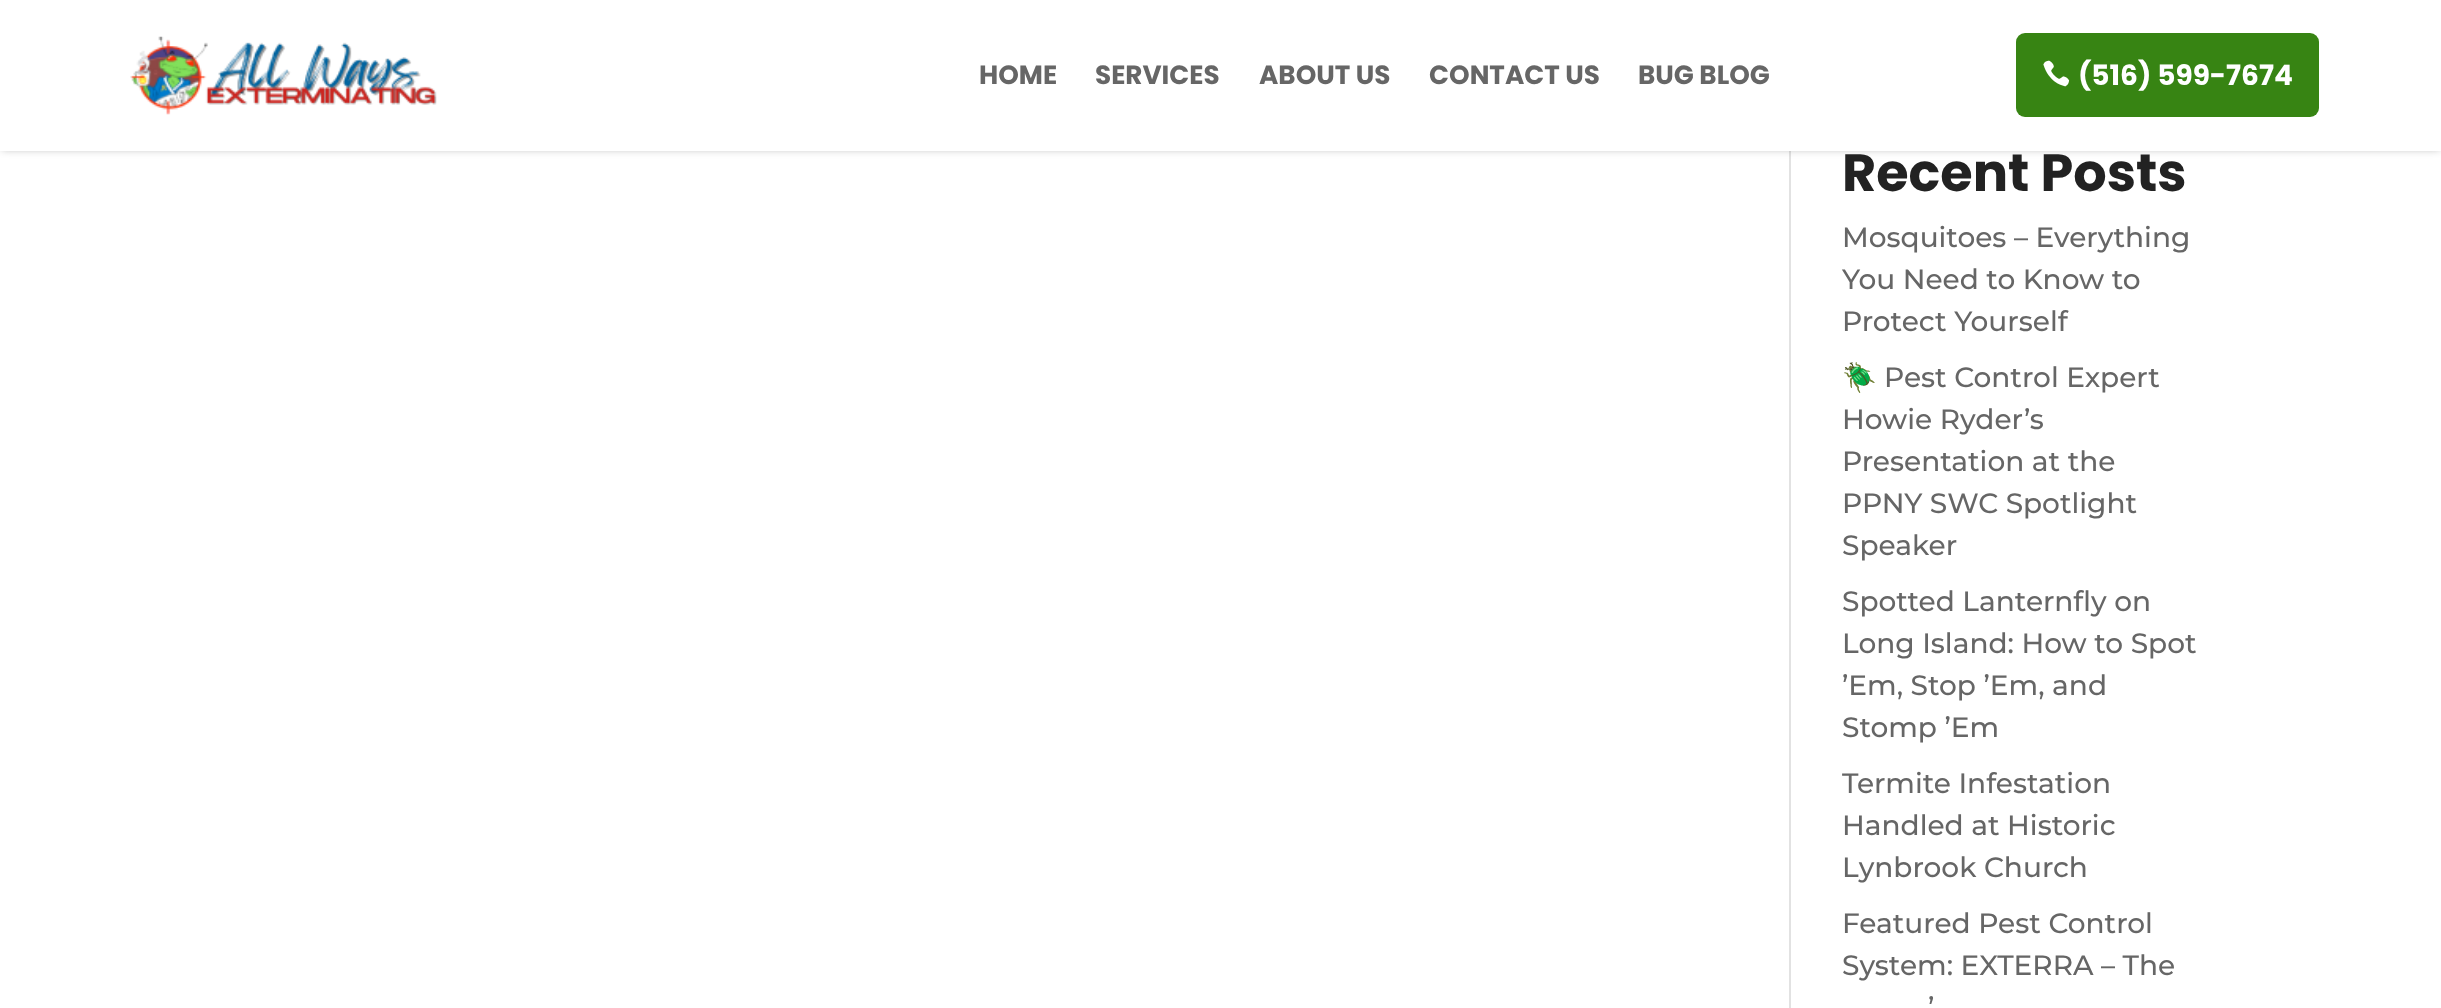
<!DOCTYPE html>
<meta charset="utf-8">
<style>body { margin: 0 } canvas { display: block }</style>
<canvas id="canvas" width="2441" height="1008"></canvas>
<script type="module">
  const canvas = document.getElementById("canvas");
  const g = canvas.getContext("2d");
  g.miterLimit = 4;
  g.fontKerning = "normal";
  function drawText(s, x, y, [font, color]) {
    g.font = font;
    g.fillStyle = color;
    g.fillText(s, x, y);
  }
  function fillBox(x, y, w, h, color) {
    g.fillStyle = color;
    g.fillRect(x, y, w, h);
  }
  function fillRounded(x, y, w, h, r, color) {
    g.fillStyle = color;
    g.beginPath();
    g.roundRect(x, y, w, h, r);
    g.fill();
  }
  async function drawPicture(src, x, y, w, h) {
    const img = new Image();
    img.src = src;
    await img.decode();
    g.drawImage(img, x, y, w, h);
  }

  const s1 = ["bold 26.25px Poppins", "#666666"];
  const s2 = ["bold 28px Poppins", "#FFFFFF"];
  const s3 = ["bold 52.5px Poppins", "#222222"];
  const s4 = ["500 28px Montserrat", "#666666"];
  const s5 = ["28px Noto Color Emoji", "#666666"];

  fillBox(0, 0, 2441, 1008, "#FFFFFF");
  fillBox(1789, 151, 2, 857, "#E2E2E2");
  g.fillStyle = "rgba(0, 0, 0, 0.3)";
  g.filter = "blur(4.5px)";
  g.beginPath();
  g.rect(2, 2, 2438, 147);
  g.fill();
  g.filter = "none";
  fillBox(0, 0, 2441, 151, "#FFFFFF");
  await drawPicture("pic1.png", 130, 36, 307, 79);
  drawText("HOME", 979, 84, s1);
  drawText("SERVICES", 1095, 84, s1);
  drawText("ABOUT US", 1259, 84, s1);
  drawText("CONTACT US", 1429, 84, s1);
  drawText("BUG BLOG", 1638, 84, s1);
  fillRounded(2016, 33, 303, 84, 9, "#378413");
  await drawPicture("pic2.png", 2043, 60, 27, 27);
  drawText("(516) 599-7674", 2078, 85, s2);
  drawText("Recent Posts", 1842, 191, s3);
  drawText("Mosquitoes – Everything", 1842, 247, s4);
  drawText("You Need to Know to", 1842, 289, s4);
  drawText("Protect Yourself", 1842, 331, s4);
  drawText("🪲", 1842, 387, s5);
  drawText("Pest Control Expert", 1884, 387, s4);
  drawText("Howie Ryder’s", 1842, 429, s4);
  drawText("Presentation at the", 1842, 471, s4);
  drawText("PPNY SWC Spotlight", 1842, 513, s4);
  drawText("Speaker", 1842, 555, s4);
  drawText("Spotted Lanternfly on", 1842, 611, s4);
  drawText("Long Island: How to Spot", 1842, 653, s4);
  drawText("’Em, Stop ’Em, and", 1842, 695, s4);
  drawText("Stomp ’Em", 1842, 737, s4);
  drawText("Termite Infestation", 1842, 793, s4);
  drawText("Handled at Historic", 1842, 835, s4);
  drawText("Lynbrook Church", 1842, 877, s4);
  drawText("Featured Pest Control", 1842, 933, s4);
  drawText("System: EXTERRA – The", 1842, 975, s4);
  drawText("’", 1928, 1017, s4);
</script>
